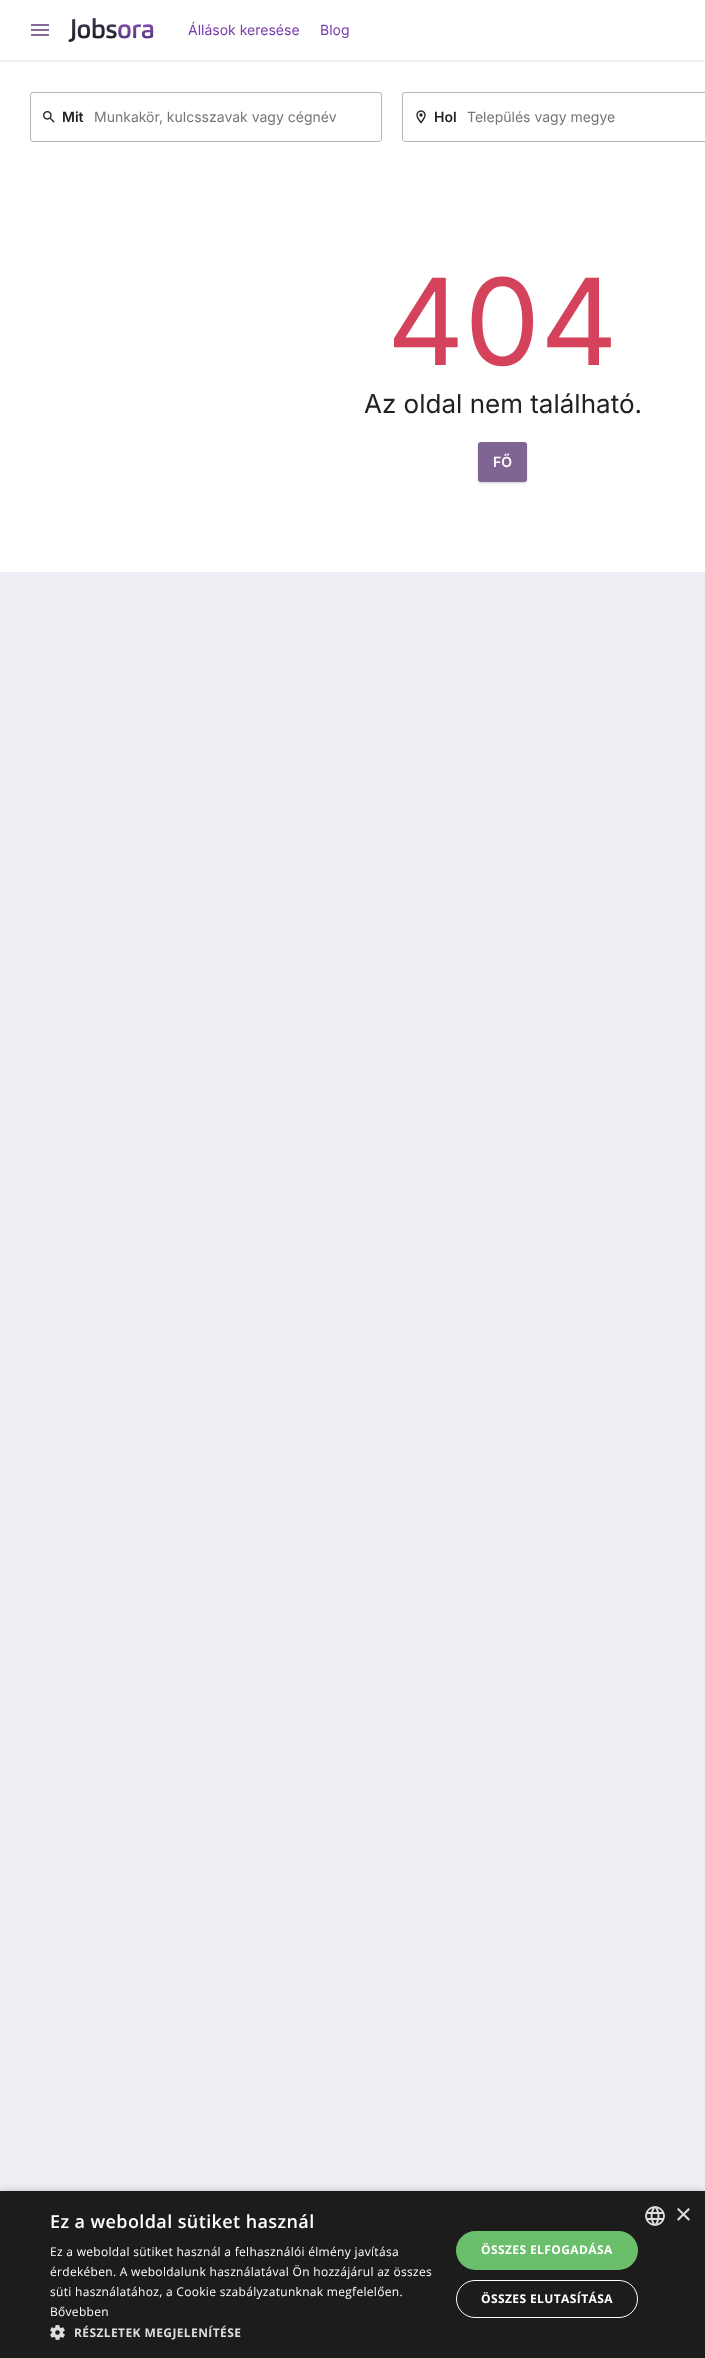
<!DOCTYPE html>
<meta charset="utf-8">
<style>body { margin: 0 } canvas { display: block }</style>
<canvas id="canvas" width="705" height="2358"></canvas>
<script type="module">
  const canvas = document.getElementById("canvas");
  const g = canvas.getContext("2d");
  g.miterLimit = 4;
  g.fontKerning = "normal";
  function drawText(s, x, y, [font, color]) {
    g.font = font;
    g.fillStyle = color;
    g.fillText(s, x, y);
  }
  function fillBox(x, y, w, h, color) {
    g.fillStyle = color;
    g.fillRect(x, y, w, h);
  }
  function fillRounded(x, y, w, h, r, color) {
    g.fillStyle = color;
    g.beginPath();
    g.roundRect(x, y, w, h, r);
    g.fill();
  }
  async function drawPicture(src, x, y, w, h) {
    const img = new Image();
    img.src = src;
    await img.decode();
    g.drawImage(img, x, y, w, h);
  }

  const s1 = ["14px Inter", "#783AAB"];
  const s2 = ["600 14px Inter", "#222222"];
  const s3 = ["14px Inter", "#757575"];
  const s4 = ["120px Inter", "#D4435B"];
  const s5 = ["26px Inter", "#222222"];
  const s6 = ["600 14px Inter", "#FFFFFF"];
  const s7 = ["600 18px Open Sans", "#FFFFFF"];
  const s8 = ["12px Open Sans", "#FFFFFF"];
  const s9 = ["bold 12px Open Sans", "#DDDDDD"];
  const s10 = ["bold 12px Open Sans", "#FFFFFF"];
  const s11 = ["29px Liberation Sans", "#DDDDDD"];

  fillBox(0, 0, 705, 2358, "#ECEEF3");
  fillBox(0, 0, 705, 572, "#FFFFFF");
  fillBox(0, 60, 705, 2, "#ECEEF3");
  await drawPicture("pic1.png", 31, 24, 18, 12);
  await drawPicture("pic2.png", 68, 18, 86, 24);
  drawText("Állások keresése", 188, 35, s1);
  drawText("Blog", 320, 35, s1);
  g.beginPath();
  g.roundRect(30.5, 92.5, 351, 49, 2.5);
  g.strokeStyle = "#B6B6B6";
  g.stroke();
  await drawPicture("pic3.png", 43, 111, 12, 12);
  drawText("Mit", 62, 122, s2);
  drawText("Munkakör, kulcsszavak vagy cégnév", 94, 122, s3);
  g.beginPath();
  g.roundRect(402.5, 92.5, 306, 49, 2.5);
  g.stroke();
  await drawPicture("pic4.png", 416, 110, 10, 14);
  drawText("Hol", 434, 122, s2);
  drawText("Település vagy megye", 467, 122, s3);
  drawText("404", 387, 365, s4);
  drawText("Az oldal nem található.", 364, 413, s5);
  g.fillStyle = "rgba(0, 0, 0, 0.2)";
  g.filter = "blur(1px)";
  g.beginPath();
  g.roundRect(478, 443, 49, 40, 3);
  g.fill();
  g.filter = "none";
  fillRounded(478, 442, 49, 40, 3, "#7F6593");
  drawText("FŐ", 493, 467, s6);
  g.fillStyle = "rgba(0, 0, 0, 0.35)";
  g.filter = "blur(4px)";
  g.beginPath();
  g.rect(1, 2193, 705, 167);
  g.fill();
  g.filter = "none";
  fillBox(0, 2191, 705, 167, "#1C1C1C");
  g.letterSpacing = "0.4px";
  drawText("Ez a weboldal sütiket használ", 50, 2228, s7);
  g.letterSpacing = "0.3px";
  drawText("Ez a weboldal sütiket használ a felhasználói élmény javítása", 50, 2256, s8);
  drawText("érdekében. A weboldalunk használatával Ön hozzájárul az összes", 50, 2276, s8);
  drawText("süti használatához, a Cookie szabályzatunknak megfelelően.", 50, 2296, s8);
  drawText("Bővebben", 50, 2316, s8);
  await drawPicture("pic5.png", 50, 2325, 15, 15);
  g.letterSpacing = "0.4px";
  drawText("RÉSZLETEK MEGJELENÍTÉSE", 74, 2337, s9);
  fillRounded(456, 2231, 182, 39, 19.5, "#6BBE6B");
  drawText("ÖSSZES ELFOGADÁSA", 481, 2254, s10);
  g.beginPath();
  g.roundRect(456.5, 2280.5, 181, 37, 18.5);
  g.strokeStyle = "#FFFFFF";
  g.stroke();
  drawText("ÖSSZES ELUTASÍTÁSA", 481, 2303, s10);
  await drawPicture("pic6.png", 645, 2206, 20, 20);
  g.letterSpacing = "0px";
  drawText("×", 675, 2224, s11);
</script>
